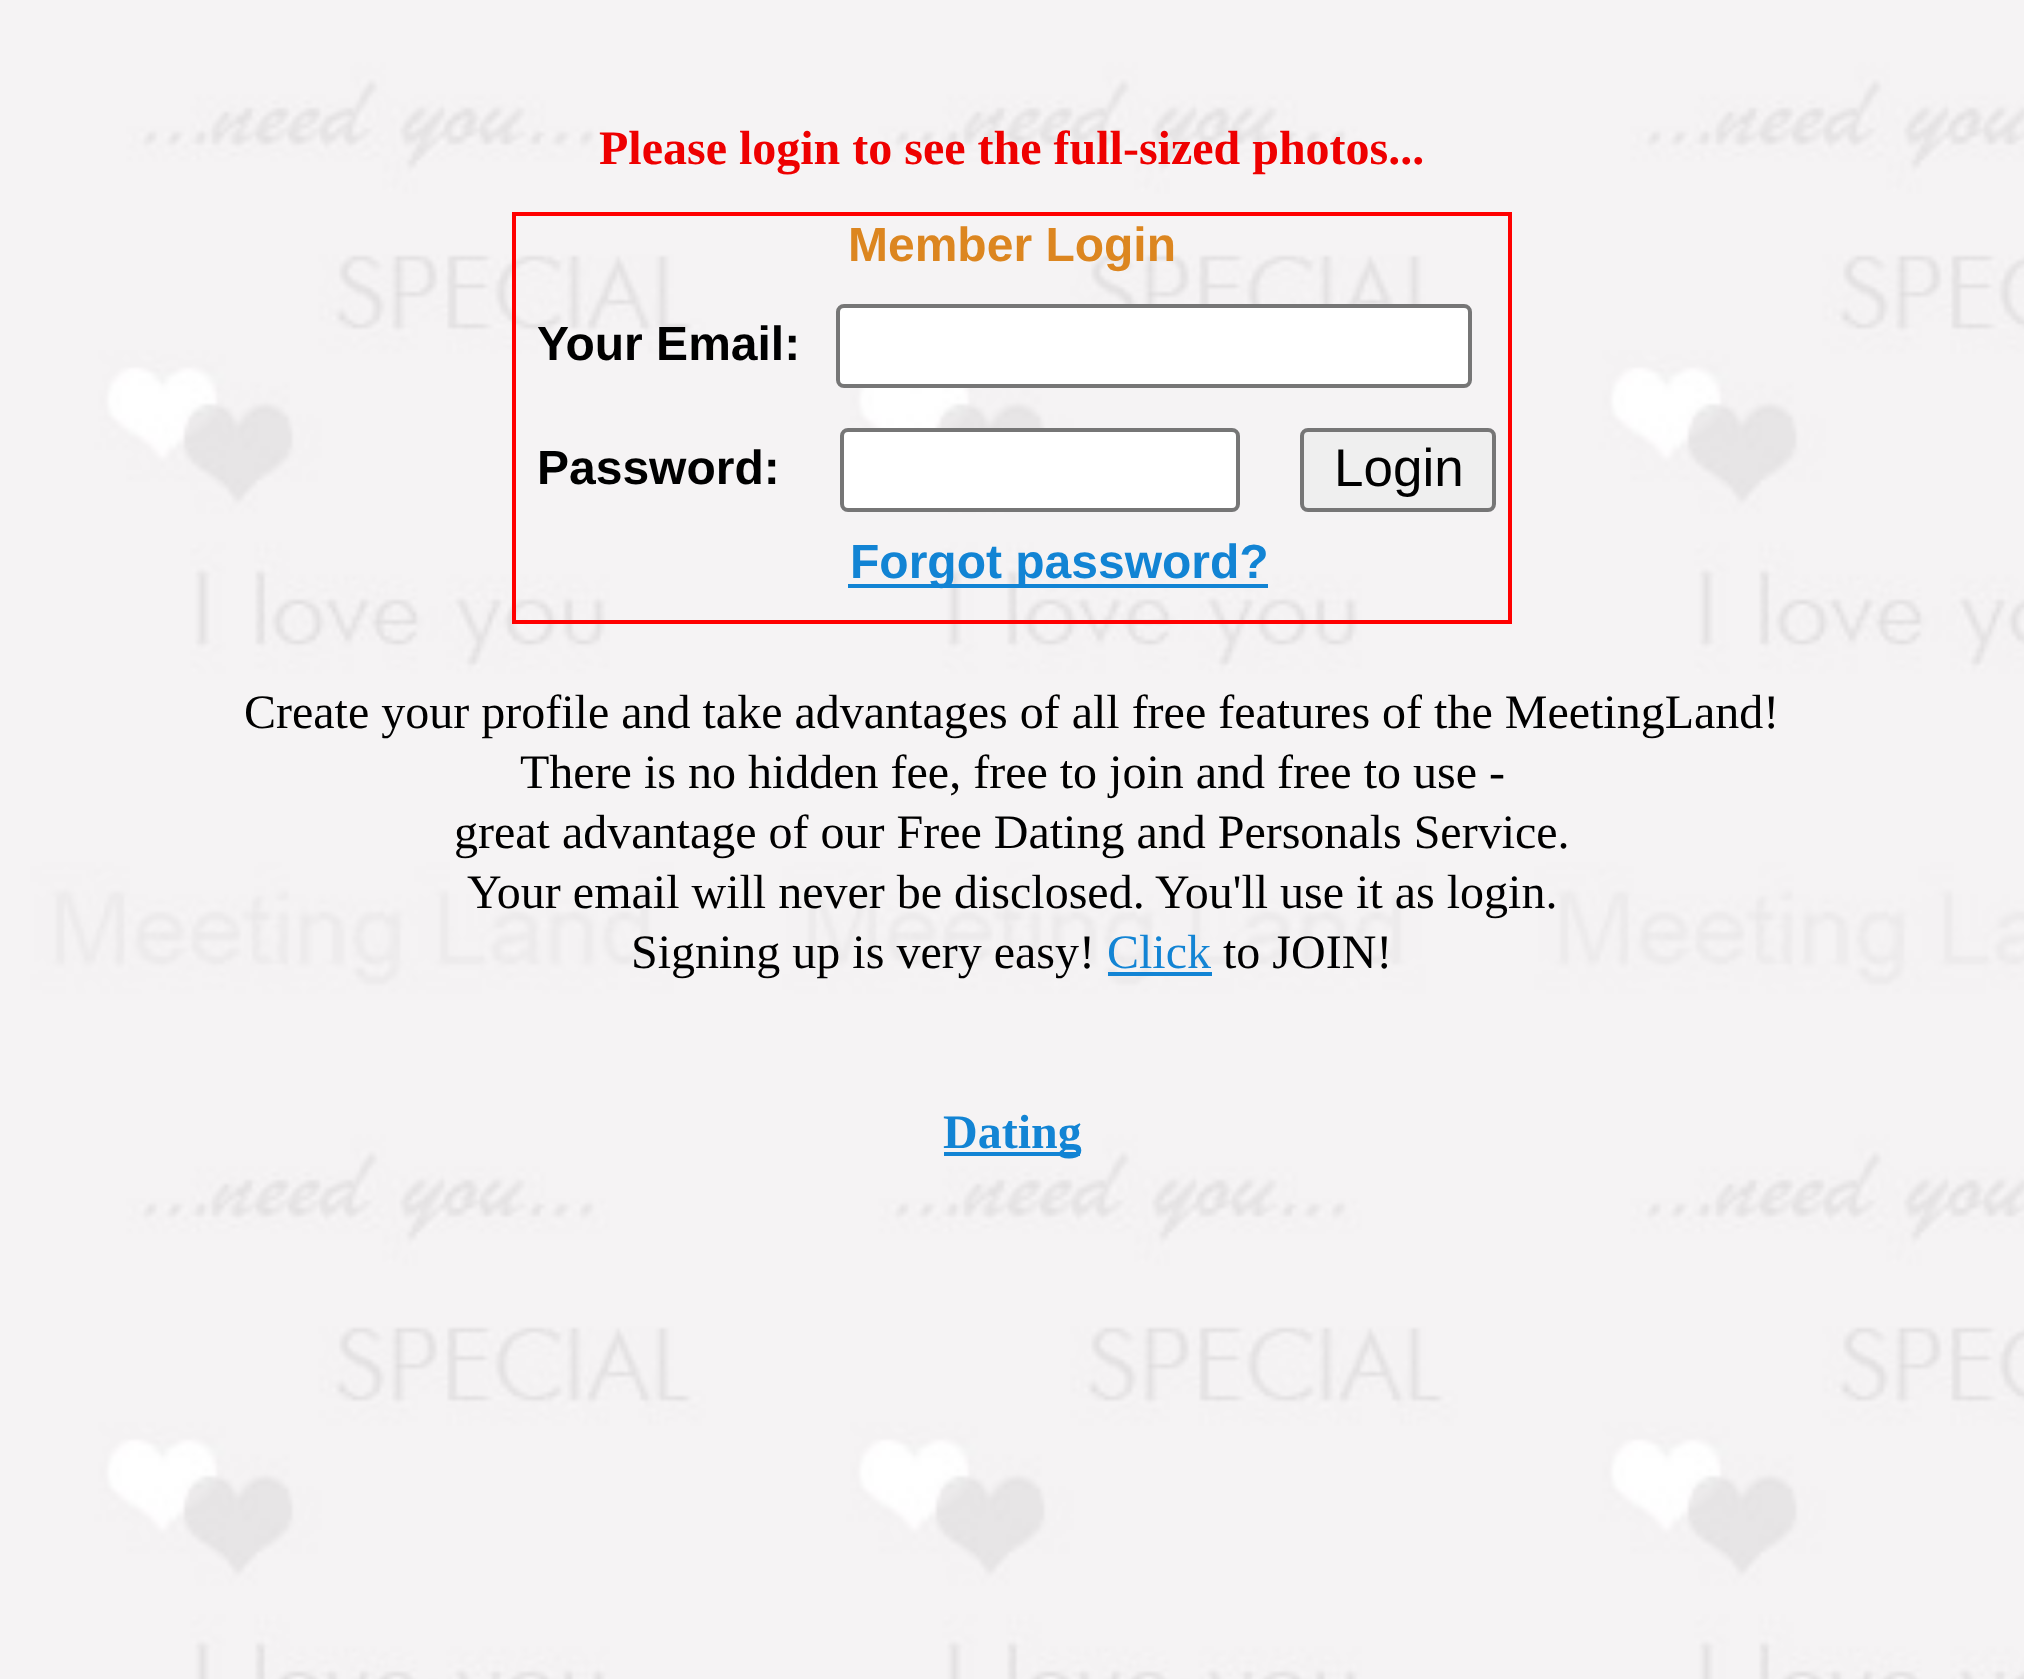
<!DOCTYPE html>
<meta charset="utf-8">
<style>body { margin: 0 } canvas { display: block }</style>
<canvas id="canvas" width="2024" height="1679"></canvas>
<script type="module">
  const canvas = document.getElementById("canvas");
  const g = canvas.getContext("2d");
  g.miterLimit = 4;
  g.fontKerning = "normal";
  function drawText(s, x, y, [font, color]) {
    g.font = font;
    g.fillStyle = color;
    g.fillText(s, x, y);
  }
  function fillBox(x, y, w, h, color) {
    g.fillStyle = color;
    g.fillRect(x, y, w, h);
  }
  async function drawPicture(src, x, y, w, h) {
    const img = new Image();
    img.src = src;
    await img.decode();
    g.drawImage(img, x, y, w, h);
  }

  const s1 = ["bold 48px Liberation Serif", "#EE0000"];
  const s2 = ["bold 48px Liberation Sans", "#DC8620"];
  const s3 = ["bold 48px Liberation Sans", "#000000"];
  const s4 = ["53px Liberation Sans", "#000000"];
  const s5 = ["bold 48px Liberation Sans", "#1284D4"];
  const s6 = ["48px Liberation Serif", "#000000"];
  const s7 = ["48px Liberation Serif", "#1284D4"];
  const s8 = ["bold 48px Liberation Serif", "#1284D4"];

  fillBox(0, 0, 2024, 1679, "#FFFFFF");
  await drawPicture("pic1.png", 0, 0, 2024, 1679);
  drawText("Please login to see the full-sized photos...", 599, 164, s1);
  fillBox(512, 212, 1000, 4, "#FF0000");
  fillBox(1508, 212, 4, 412, "#FF0000");
  fillBox(512, 620, 1000, 4, "#FF0000");
  fillBox(512, 212, 4, 412, "#FF0000");
  drawText("Member Login", 848, 261, s2);
  drawText("Your Email:", 537, 360, s3);
  g.fillStyle = "#FFFFFF";
  g.beginPath();
  g.roundRect(838, 306, 632, 80, 6);
  g.fill();
  g.strokeStyle = "#767676";
  g.lineWidth = 4;
  g.stroke();
  drawText("Password:", 537, 484, s3);
  g.fillStyle = "#FFFFFF";
  g.beginPath();
  g.roundRect(842, 430, 396, 80, 6);
  g.fill();
  g.stroke();
  g.fillStyle = "#EFEFEF";
  g.beginPath();
  g.roundRect(1302, 430, 192, 80, 6);
  g.fill();
  g.stroke();
  drawText("Login", 1334, 486, s4);
  fillBox(848, 584, 420, 4, "#1284D4");
  drawText("Forgot password?", 850, 578, s5);
  drawText("Create your profile and take advantages of all free features of the MeetingLand!", 244, 728, s6);
  drawText("There is no hidden fee, free to join and free to use -", 520, 788, s6);
  drawText("great advantage of our Free Dating and Personals Service.", 454, 848, s6);
  drawText("Your email will never be disclosed. You'll use it as login.", 467, 908, s6);
  drawText("Signing up is very easy!", 631, 968, s6);
  drawText("Click", 1107, 968, s7);
  fillBox(1108, 972, 104, 4, "#1284D4");
  drawText("to JOIN!", 1223, 968, s6);
  fillBox(944, 1152, 136, 4, "#1284D4");
  drawText("Dating", 943, 1148, s8);
</script>
